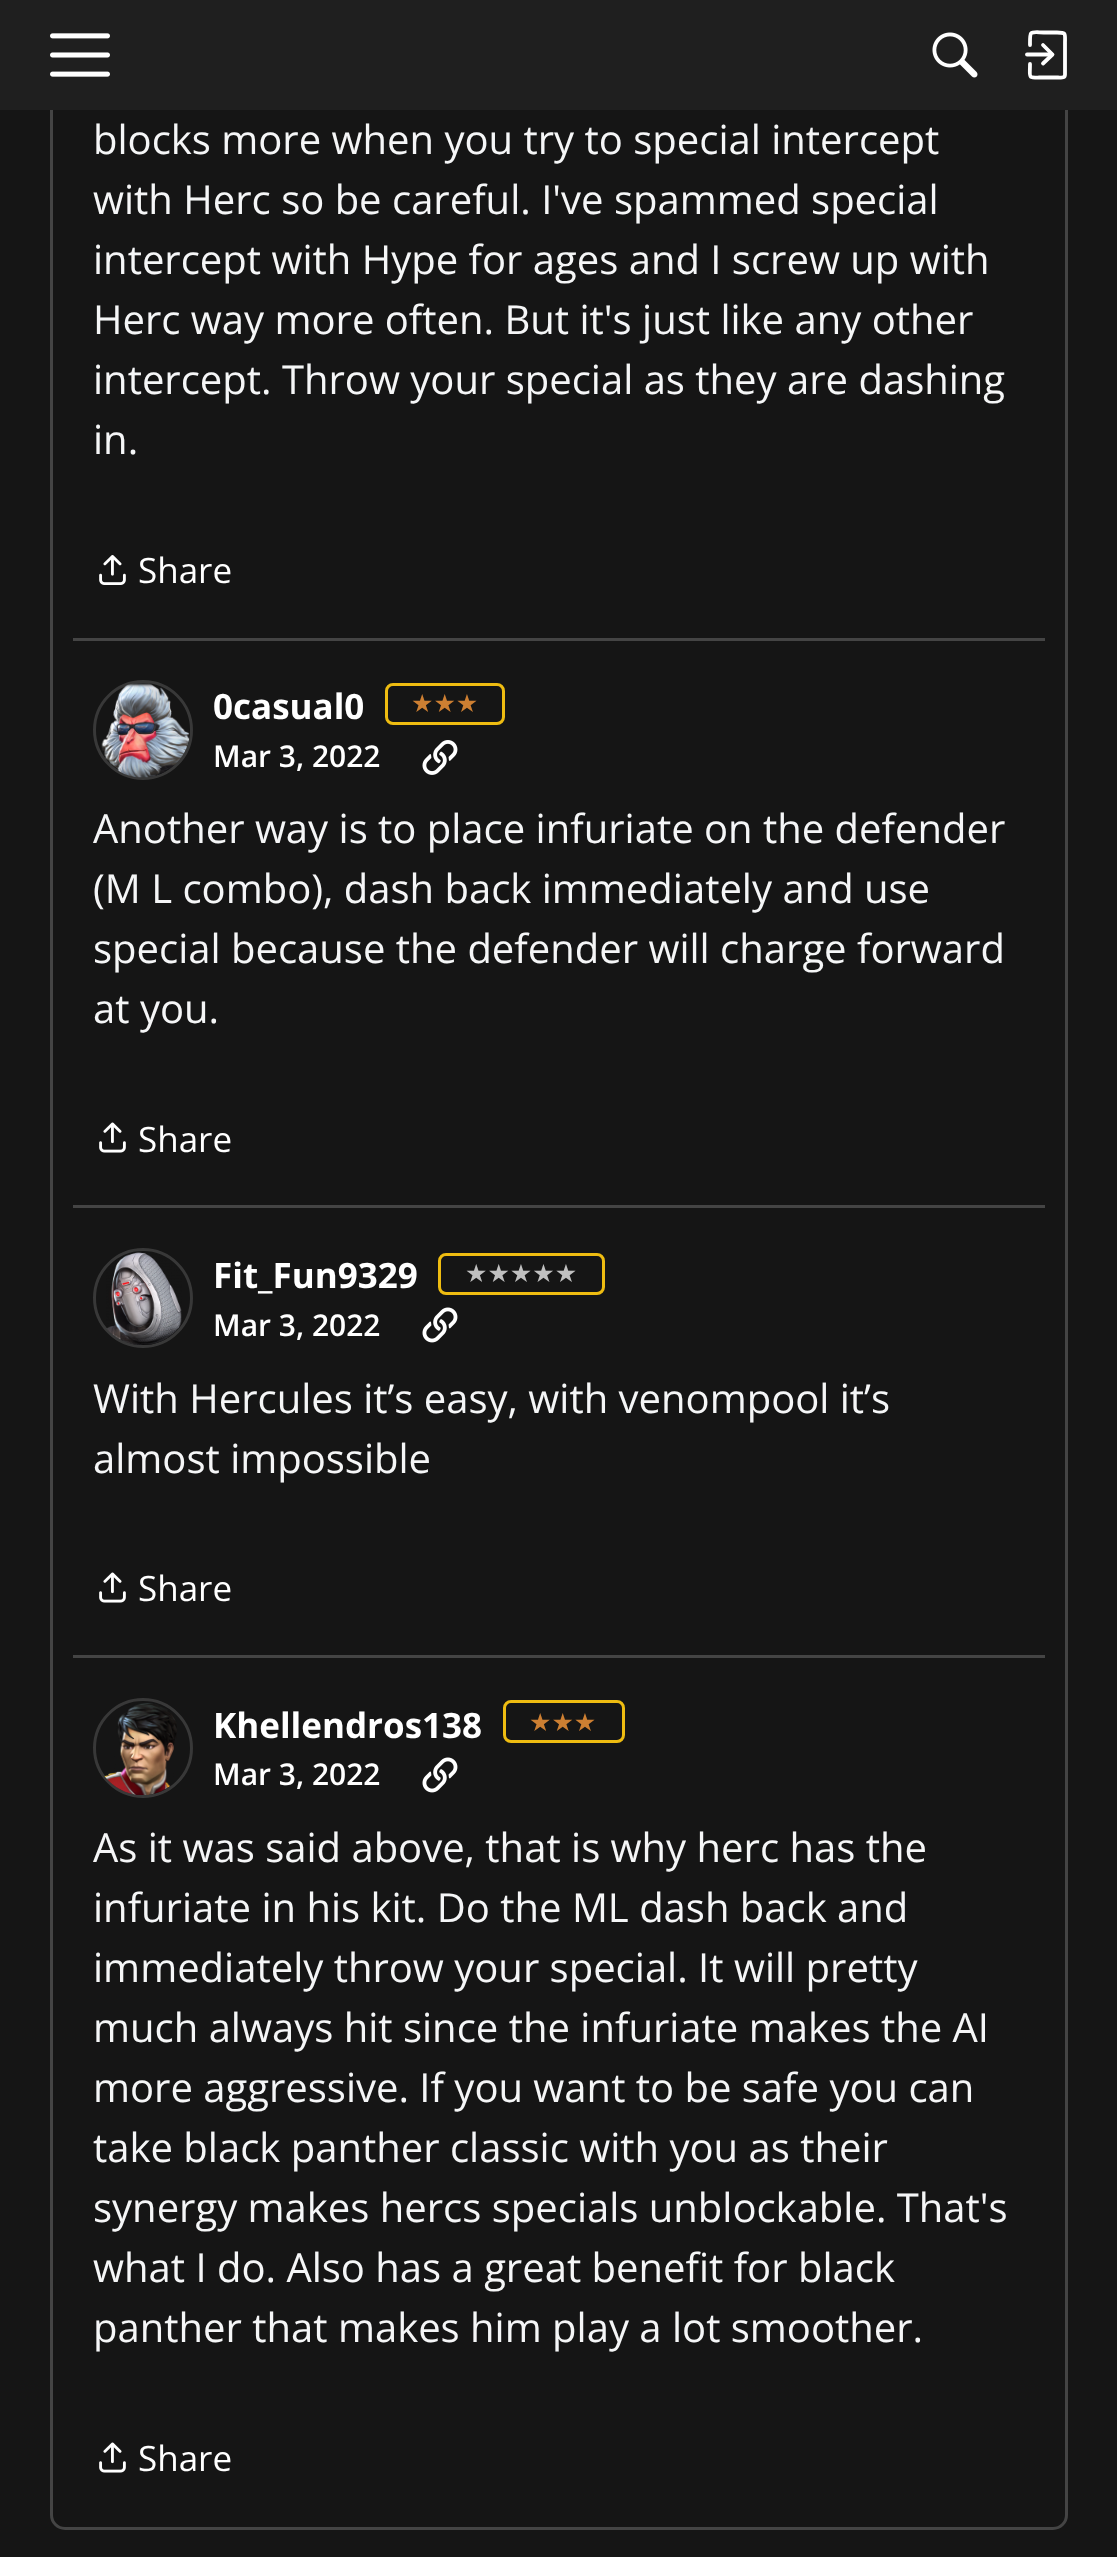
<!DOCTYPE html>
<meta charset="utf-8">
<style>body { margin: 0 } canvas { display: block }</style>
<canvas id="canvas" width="1117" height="2557"></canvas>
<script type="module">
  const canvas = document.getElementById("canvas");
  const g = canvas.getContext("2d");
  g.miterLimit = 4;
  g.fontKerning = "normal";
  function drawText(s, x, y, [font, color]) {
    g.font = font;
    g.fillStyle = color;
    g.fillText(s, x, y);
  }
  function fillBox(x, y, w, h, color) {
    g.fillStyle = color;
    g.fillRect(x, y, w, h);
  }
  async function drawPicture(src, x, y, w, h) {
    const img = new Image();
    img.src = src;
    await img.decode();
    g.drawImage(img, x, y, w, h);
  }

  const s1 = ["40px Open Sans", "#F5F6F7"];
  const s2 = ["35px Open Sans", "#FFFFFF"];
  const s3 = ["bold 35px Open Sans", "#FFFFFF"];
  const s4 = ["25px DejaVu Sans", "#CD7F32"];
  const s5 = ["600 30px Open Sans", "#FFFFFF"];
  const s6 = ["25px DejaVu Sans", "#C0C0C0"];

  fillBox(0, 0, 1117, 2557, "#151515");
  g.beginPath();
  g.roundRect(51.5, -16.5, 1015, 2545, 13.5);
  g.strokeStyle = "#444444";
  g.lineWidth = 3;
  g.stroke();
  fillBox(0, 0, 1117, 110, "#1F1F1F");
  await drawPicture("pic1.png", 50, 33, 60, 44);
  await drawPicture("pic2.png", 932, 32, 46, 46);
  g.beginPath();
  g.moveTo(1043, 63.5);
  g.lineTo(1052.5, 54.5);
  g.lineTo(1043, 45);
  g.strokeStyle = "#FFFFFF";
  g.lineWidth = 3.8;
  g.lineCap = "round";
  g.lineJoin = "round";
  g.stroke();
  g.beginPath();
  g.moveTo(1051.5, 54.5);
  g.lineTo(1027, 54.5);
  g.lineJoin = "miter";
  g.stroke();
  g.beginPath();
  g.moveTo(1030, 45);
  g.bezierCurveTo(1030, 29, 1029, 32.5, 1047.5, 32.5);
  g.lineTo(1057, 32.5);
  g.bezierCurveTo(1066.5, 32.5, 1065, 33.5, 1065, 43);
  g.lineTo(1065, 74.5);
  g.bezierCurveTo(1065, 78.5, 1061, 77.5, 1058, 77.5);
  g.lineTo(1043, 77.5);
  g.bezierCurveTo(1027, 77.5, 1030, 79, 1030, 64);
  g.lineJoin = "round";
  g.stroke();
  drawText("blocks more when you try to special intercept", 93, 154, s1);
  drawText("with Herc so be careful. I've spammed special", 93, 214, s1);
  drawText("intercept with Hype for ages and I screw up with", 93, 274, s1);
  drawText("Herc way more often. But it's just like any other", 93, 334, s1);
  drawText("intercept. Throw your special as they are dashing", 93, 394, s1);
  drawText("in.", 93, 454, s1);
  await drawPicture("pic3.png", 99, 555, 27, 30);
  drawText("Share", 138, 583, s2);
  fillBox(73, 638, 972, 3, "#444444");
  g.beginPath();
  g.arc(143, 730, 48.5, 0, Math.PI * 2);
  g.strokeStyle = "#383838";
  g.lineWidth = 3;
  g.stroke();
  await drawPicture("pic4.png", 101, 683, 89, 95);
  drawText("0casual0", 213, 719, s3);
  g.beginPath();
  g.roundRect(386.5, 684.5, 117, 39, 6.5);
  g.strokeStyle = "#EEBC11";
  g.lineJoin = "miter";
  g.stroke();
  drawText("★★★", 411, 712, s4);
  drawText("Mar 3, 2022", 213, 767, s5);
  await drawPicture("pic5.png", 422, 740, 36, 35);
  drawText("Another way is to place infuriate on the defender", 93, 843, s1);
  drawText("(M L combo), dash back immediately and use", 93, 903, s1);
  drawText("special because the defender will charge forward", 93, 963, s1);
  drawText("at you.", 93, 1023, s1);
  await drawPicture("pic6.png", 99, 1122, 27, 31);
  drawText("Share", 138, 1152, s2);
  fillBox(73, 1205, 972, 3, "#444444");
  g.beginPath();
  g.arc(143, 1298, 48.5, 0, Math.PI * 2);
  g.strokeStyle = "#383838";
  g.stroke();
  await drawPicture("pic7.png", 106, 1252, 76, 93);
  drawText("Fit_Fun9329", 213, 1288, s3);
  g.beginPath();
  g.roundRect(439.5, 1254.5, 164, 39, 6.5);
  g.strokeStyle = "#EEBC11";
  g.stroke();
  drawText("★★★★★", 465, 1282, s6);
  drawText("Mar 3, 2022", 213, 1336, s5);
  await drawPicture("pic8.png", 422, 1307, 36, 36);
  drawText("With Hercules it’s easy, with venompool it’s", 93, 1413, s1);
  drawText("almost impossible", 93, 1473, s1);
  await drawPicture("pic6.png", 99, 1572, 27, 31);
  drawText("Share", 138, 1601, s2);
  fillBox(73, 1655, 972, 3, "#444444");
  g.beginPath();
  g.arc(143, 1748, 48.5, 0, Math.PI * 2);
  g.strokeStyle = "#383838";
  g.stroke();
  await drawPicture("pic9.png", 104, 1703, 73, 92);
  drawText("Khellendros138", 213, 1738, s3);
  g.beginPath();
  g.roundRect(504.5, 1701.5, 119, 40, 6.5);
  g.strokeStyle = "#EEBC11";
  g.stroke();
  drawText("★★★", 529, 1731, s4);
  drawText("Mar 3, 2022", 213, 1785, s5);
  await drawPicture("pic8.png", 422, 1757, 36, 36);
  drawText("As it was said above, that is why herc has the", 93, 1862, s1);
  drawText("infuriate in his kit. Do the ML dash back and", 93, 1922, s1);
  drawText("immediately throw your special. It will pretty", 93, 1982, s1);
  drawText("much always hit since the infuriate makes the AI", 93, 2042, s1);
  drawText("more aggressive. If you want to be safe you can", 93, 2102, s1);
  drawText("take black panther classic with you as their", 93, 2162, s1);
  drawText("synergy makes hercs specials unblockable. That's", 93, 2222, s1);
  drawText("what I do. Also has a great benefit for black", 93, 2282, s1);
  drawText("panther that makes him play a lot smoother.", 93, 2342, s1);
  await drawPicture("pic6.png", 99, 2442, 27, 31);
  drawText("Share", 138, 2471, s2);
</script>
